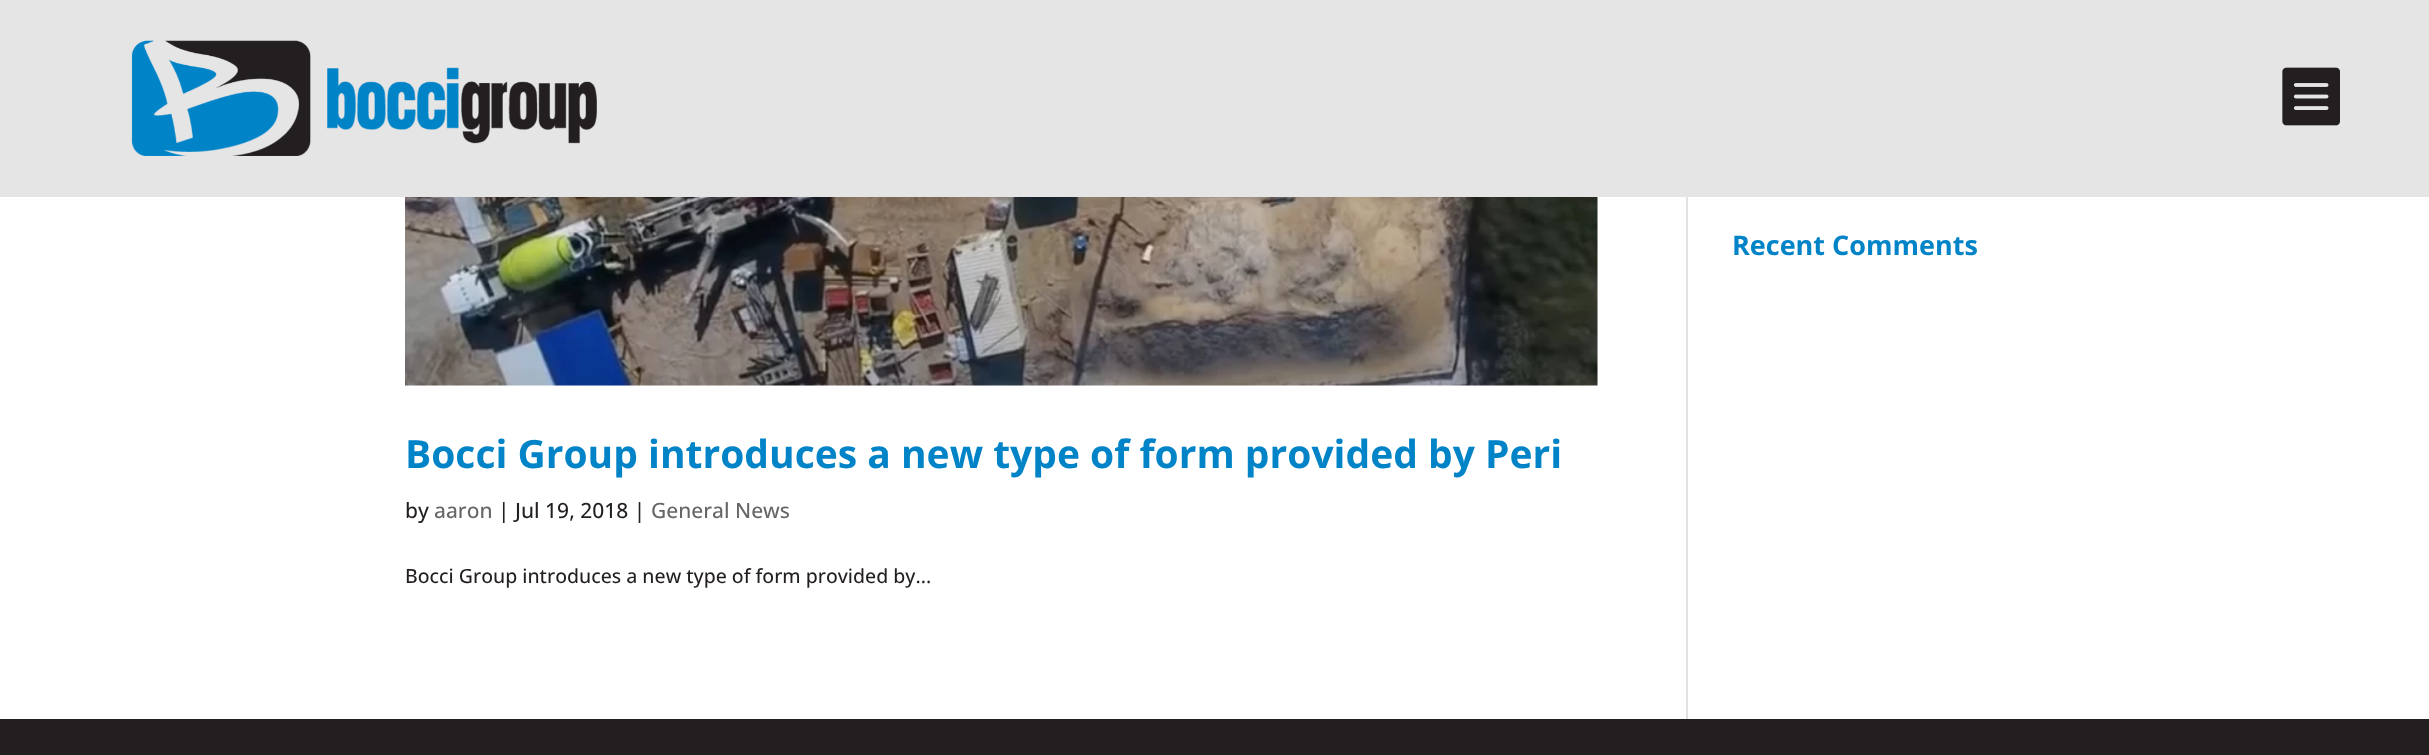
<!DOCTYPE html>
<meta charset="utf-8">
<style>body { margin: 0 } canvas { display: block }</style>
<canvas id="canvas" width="2429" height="755"></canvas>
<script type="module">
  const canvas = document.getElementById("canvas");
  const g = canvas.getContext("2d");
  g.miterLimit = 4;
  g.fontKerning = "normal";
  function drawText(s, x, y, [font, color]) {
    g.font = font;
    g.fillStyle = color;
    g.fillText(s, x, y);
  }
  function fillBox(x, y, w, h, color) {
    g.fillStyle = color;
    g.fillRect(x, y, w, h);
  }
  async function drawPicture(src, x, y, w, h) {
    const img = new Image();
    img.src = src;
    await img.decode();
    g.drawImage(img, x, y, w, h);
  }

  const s1 = ["bold 27px Open Sans", "#0083C7"];
  const s2 = ["bold 39px Open Sans", "#0083C7"];
  const s3 = ["500 21px Open Sans", "#231F20"];
  const s4 = ["500 21px Open Sans", "#666666"];
  const s5 = ["500 19.5px Open Sans", "#231F20"];

  fillBox(0, 0, 2429, 755, "#FFFFFF");
  fillBox(0, 0, 2429, 197, "#E5E5E5");
  await drawPicture("pic1.png", 131, 40, 466, 116);
  await drawPicture("pic2.png", 2282, 67, 58, 59);
  fillBox(1686, 197, 2, 522, "#E2E2E2");
  drawText("Recent Comments", 1732, 255, s1);
  await drawPicture("pic3.png", 405, 197, 1193, 189);
  drawText("Bocci Group introduces a new type of form provided by Peri", 405, 468, s2);
  drawText("by", 405, 518, s3);
  drawText("aaron", 434, 518, s4);
  drawText("| Jul 19, 2018 |", 498, 518, s3);
  drawText("General News", 651, 518, s4);
  drawText("Bocci Group introduces a new type of form provided by...", 405, 583, s5);
  fillBox(0, 719, 2429, 36, "#231F20");
</script>
